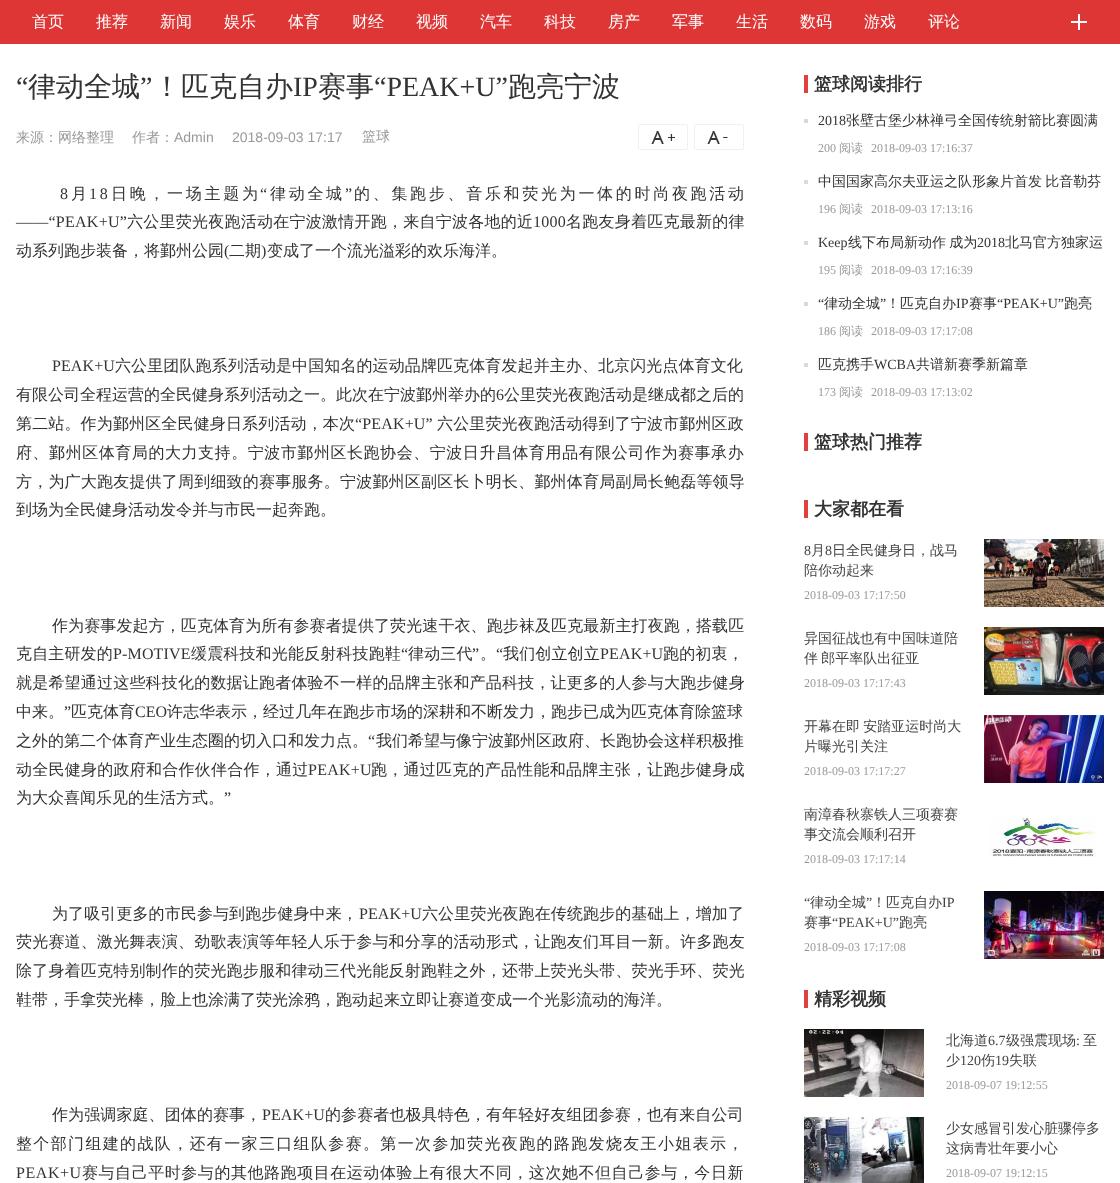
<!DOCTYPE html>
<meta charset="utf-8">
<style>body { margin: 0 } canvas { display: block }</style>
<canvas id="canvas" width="1120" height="1183"></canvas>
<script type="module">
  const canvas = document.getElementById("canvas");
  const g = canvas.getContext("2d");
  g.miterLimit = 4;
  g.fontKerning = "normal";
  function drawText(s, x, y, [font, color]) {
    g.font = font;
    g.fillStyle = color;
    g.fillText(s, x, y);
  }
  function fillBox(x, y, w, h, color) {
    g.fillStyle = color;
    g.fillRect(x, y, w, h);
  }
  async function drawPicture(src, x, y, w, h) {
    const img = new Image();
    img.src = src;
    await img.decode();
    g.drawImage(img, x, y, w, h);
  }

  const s1 = ["500 16px WenQuanYi Zen Hei", "#FFFFFF"];
  const s2 = ["28px Liberation Serif", "#333333"];
  const s3 = ["500 28px WenQuanYi Zen Hei", "#333333"];
  const s4 = ["500 14px WenQuanYi Zen Hei", "#999999"];
  const s5 = ["14px Liberation Sans", "#999999"];
  const s6 = ["16px Liberation Serif", "#333333"];
  const s7 = ["500 16px WenQuanYi Zen Hei", "#333333"];
  const s8 = ["bold 18px WenQuanYi Zen Hei", "#333333"];
  const s9 = ["14px Liberation Serif", "#333333"];
  const s10 = ["500 14px WenQuanYi Zen Hei", "#333333"];
  const s11 = ["12px Liberation Serif", "#999999"];
  const s12 = ["500 12px WenQuanYi Zen Hei", "#999999"];
  const s13 = ["14px Liberation Serif", "#444444"];
  const s14 = ["500 14px WenQuanYi Zen Hei", "#444444"];

  fillBox(0, 0, 1120, 1183, "#FFFFFF");
  fillBox(0, 0, 1120, 44, "#DD3635");
  drawText("首页", 32, 27, s1);
  drawText("推荐", 96, 27, s1);
  drawText("新闻", 160, 27, s1);
  drawText("娱乐", 224, 27, s1);
  drawText("体育", 288, 27, s1);
  drawText("财经", 352, 27, s1);
  drawText("视频", 416, 27, s1);
  drawText("汽车", 480, 27, s1);
  drawText("科技", 544, 27, s1);
  drawText("房产", 608, 27, s1);
  drawText("军事", 672, 27, s1);
  drawText("生活", 736, 27, s1);
  drawText("数码", 800, 27, s1);
  drawText("游戏", 864, 27, s1);
  drawText("评论", 928, 27, s1);
  await drawPicture("pic1.png", 1071, 14, 16, 16);
  drawText("“", 16, 96, s2);
  drawText("律动全城", 28, 96, s3);
  drawText("”", 140, 96, s2);
  drawText("！匹克自办", 153, 96, s3);
  drawText("IP", 293, 96, s2);
  drawText("赛事", 318, 96, s3);
  drawText("“PEAK+U”", 374, 96, s2);
  drawText("跑亮宁波", 508, 96, s3);
  drawText("来源：网络整理", 16, 142, s4);
  drawText("作者：", 132, 142, s4);
  drawText("Admin", 174, 142, s5);
  drawText("2018-09-03 17:17", 232, 142, s5);
  drawText("篮球", 362, 141, s4);
  g.beginPath();
  g.roundRect(638.5, 124.5, 49, 25, 1.5);
  g.strokeStyle = "#F0F0F0";
  g.stroke();
  await drawPicture("pic2.png", 651, 131, 24, 13);
  g.beginPath();
  g.roundRect(694.5, 124.5, 49, 25, 1.5);
  g.stroke();
  await drawPicture("pic3.png", 707, 131, 21, 13);
  g.letterSpacing = "2.7px";
  drawText("8", 60, 199, s6);
  drawText("月", 71, 199, s7);
  drawText("18", 89, 199, s6);
  drawText("日晚，一场主题为", 111, 199, s7);
  drawText("“", 260, 199, s6);
  drawText("律动全城", 270, 199, s7);
  drawText("”", 345, 199, s6);
  drawText("的、集跑步、音乐和荧光为一体的时尚夜跑活动", 354, 199, s7);
  g.letterSpacing = "0.25px";
  drawText("——“PEAK+U”", 16, 227, s6);
  drawText("六公里荧光夜跑活动在宁波激情开跑，来自宁波各地的近", 127, 227, s7);
  drawText("1000", 533, 227, s6);
  drawText("名跑友身着匹克最新的律", 566, 227, s7);
  g.letterSpacing = "0px";
  drawText("动系列跑步装备，将鄞州公园", 16, 256, s7);
  drawText("(", 224, 256, s6);
  drawText("二期", 229, 256, s7);
  drawText(")", 261, 256, s6);
  drawText("变成了一个流光溢彩的欢乐海洋。", 267, 256, s7);
  g.letterSpacing = "0.1px";
  drawText("PEAK+U", 52, 371, s6);
  drawText("六公里团队跑系列活动是中国知名的运动品牌匹克体育发起并主办、北京闪光点体育文化", 115, 371, s7);
  g.letterSpacing = "0px";
  drawText("有限公司全程运营的全民健身系列活动之一。此次在宁波鄞州举办的", 16, 400, s7);
  drawText("6", 496, 400, s6);
  drawText("公里荧光夜跑活动是继成都之后的", 504, 400, s7);
  g.letterSpacing = "0.15px";
  drawText("第二站。作为鄞州区全民健身日系列活动，本次", 16, 429, s7);
  drawText("“PEAK+U”", 355, 429, s6);
  drawText("六公里荧光夜跑活动得到了宁波市鄞州区政", 437, 429, s7);
  g.letterSpacing = "0.55px";
  drawText("府、鄞州区体育局的大力支持。宁波市鄞州区长跑协会、宁波日升昌体育用品有限公司作为赛事承办", 16, 458, s7);
  g.letterSpacing = "0.2px";
  drawText("方，为广大跑友提供了周到细致的赛事服务。宁波鄞州区副区长卜明长、鄞州体育局副局长鲍磊等领导", 16, 487, s7);
  g.letterSpacing = "0px";
  drawText("到场为全民健身活动发令并与市民一起奔跑。", 16, 515, s7);
  g.letterSpacing = "0.1px";
  drawText("作为赛事发起方，匹克体育为所有参赛者提供了荧光速干衣、跑步袜及匹克最新主打夜跑，搭载匹", 52, 631, s7);
  g.letterSpacing = "0.15px";
  drawText("克自主研发的", 16, 659, s7);
  drawText("P-MOTIVE", 113, 659, s6);
  drawText("缓震科技和光能反射科技跑鞋", 191, 659, s7);
  drawText("“", 401, 659, s6);
  drawText("律动三代", 408, 659, s7);
  drawText("”", 472, 659, s6);
  drawText("。", 480, 659, s7);
  drawText("“", 496, 659, s6);
  drawText("我们创立创立", 503, 659, s7);
  drawText("PEAK+U", 600, 659, s6);
  drawText("跑的初衷，", 663, 659, s7);
  g.letterSpacing = "0.2px";
  drawText("就是希望通过这些科技化的数据让跑者体验不一样的品牌主张和产品科技，让更多的人参与大跑步健身", 16, 688, s7);
  g.letterSpacing = "0px";
  drawText("中来。", 16, 717, s7);
  drawText("”", 64, 717, s6);
  drawText("匹克体育", 71, 717, s7);
  drawText("CEO", 135, 717, s6);
  drawText("许志华表示，经过几年在跑步市场的深耕和不断发力，跑步已成为匹克体育除篮球", 167, 717, s7);
  drawText("之外的第二个体育产业生态圈的切入口和发力点。", 16, 746, s7);
  drawText("“", 368, 746, s6);
  drawText("我们希望与像宁波鄞州区政府、长跑协会这样积极推", 376, 746, s7);
  g.letterSpacing = "0.25px";
  drawText("动全民健身的政府和合作伙伴合作，通过", 16, 775, s7);
  drawText("PEAK+U", 308, 775, s6);
  drawText("跑，通过匹克的产品性能和品牌主张，让跑步健身成", 371, 775, s7);
  g.letterSpacing = "0px";
  drawText("为大众喜闻乐见的生活方式。", 16, 803, s7);
  drawText("”", 224, 803, s6);
  g.letterSpacing = "0.1px";
  drawText("为了吸引更多的市民参与到跑步健身中来，", 52, 919, s7);
  drawText("PEAK+U", 359, 919, s6);
  drawText("六公里荧光夜跑在传统跑步的基础上，增加了", 422, 919, s7);
  g.letterSpacing = "0.2px";
  drawText("荧光赛道、激光舞表演、劲歌表演等年轻人乐于参与和分享的活动形式，让跑友们耳目一新。许多跑友", 16, 947, s7);
  drawText("除了身着匹克特别制作的荧光跑步服和律动三代光能反射跑鞋之外，还带上荧光头带、荧光手环、荧光", 16, 976, s7);
  g.letterSpacing = "0px";
  drawText("鞋带，手拿荧光棒，脸上也涂满了荧光涂鸦，跑动起来立即让赛道变成一个光影流动的海洋。", 16, 1005, s7);
  g.letterSpacing = "0.1px";
  drawText("作为强调家庭、团体的赛事，", 52, 1120, s7);
  drawText("PEAK+U", 262, 1120, s6);
  drawText("的参赛者也极具特色，有年轻好友组团参赛，也有来自公司", 325, 1120, s7);
  g.letterSpacing = "1.35px";
  drawText("整个部门组建的战队，还有一家三口组队参赛。第一次参加荧光夜跑的路跑发烧友王小姐表示，", 16, 1149, s7);
  g.letterSpacing = "0.55px";
  drawText("PEAK+U", 16, 1178, s6);
  drawText("赛与自己平时参与的其他路跑项目在运动体验上有很大不同，这次她不但自己参与，今日新", 82, 1178, s7);
  fillBox(804, 75, 4, 18, "#E1413E");
  g.letterSpacing = "0px";
  drawText("篮球阅读排行", 814, 90, s8);
  fillBox(804, 119, 4, 4, "#D9D9D9");
  drawText("2018", 818, 125, s9);
  drawText("张壁古堡少林禅弓全国传统射箭比赛圆满", 846, 125, s10);
  drawText("200", 818, 152, s11);
  drawText("阅读", 839, 152, s12);
  drawText("2018-09-03 17:16:37", 871, 152, s11);
  fillBox(804, 180, 4, 4, "#D9D9D9");
  g.wordSpacing = "-1px";
  drawText("中国国家高尔夫亚运之队形象片首发 比音勒芬", 818, 186, s10);
  g.wordSpacing = "0px";
  drawText("196", 818, 213, s11);
  drawText("阅读", 839, 213, s12);
  drawText("2018-09-03 17:13:16", 871, 213, s11);
  fillBox(804, 241, 4, 4, "#D9D9D9");
  drawText("Keep", 818, 247, s9);
  g.wordSpacing = "-1px";
  drawText("线下布局新动作 成为", 848, 247, s10);
  g.wordSpacing = "0px";
  drawText("2018", 977, 247, s9);
  drawText("北马官方独家运", 1005, 247, s10);
  drawText("195", 818, 274, s11);
  drawText("阅读", 839, 274, s12);
  drawText("2018-09-03 17:16:39", 871, 274, s11);
  fillBox(804, 302, 4, 4, "#D9D9D9");
  drawText("“", 818, 308, s9);
  drawText("律动全城", 824, 308, s10);
  drawText("”", 880, 308, s9);
  drawText("！匹克自办", 886, 308, s10);
  drawText("IP", 956, 308, s9);
  drawText("赛事", 969, 308, s10);
  drawText("“PEAK+U”", 997, 308, s9);
  drawText("跑亮", 1064, 308, s10);
  drawText("186", 818, 335, s11);
  drawText("阅读", 839, 335, s12);
  drawText("2018-09-03 17:17:08", 871, 335, s11);
  fillBox(804, 363, 4, 4, "#D9D9D9");
  drawText("匹克携手", 818, 369, s10);
  drawText("WCBA", 874, 369, s9);
  drawText("共谱新赛季新篇章", 916, 369, s10);
  drawText("173", 818, 396, s11);
  drawText("阅读", 839, 396, s12);
  drawText("2018-09-03 17:13:02", 871, 396, s11);
  fillBox(804, 433, 4, 18, "#E1413E");
  drawText("篮球热门推荐", 814, 448, s8);
  fillBox(804, 500, 4, 18, "#E1413E");
  drawText("大家都在看", 814, 515, s8);
  drawText("8", 804, 555, s13);
  drawText("月", 811, 555, s14);
  drawText("8", 825, 555, s13);
  drawText("日全民健身日，战马", 832, 555, s14);
  drawText("陪你动起来", 804, 575, s14);
  drawText("2018-09-03 17:17:50", 804, 599, s11);
  await drawPicture("pic4.png", 984, 539, 120, 68);
  drawText("异国征战也有中国味道陪", 804, 643, s14);
  g.wordSpacing = "-1px";
  drawText("伴 郎平率队出征亚", 804, 663, s14);
  g.wordSpacing = "0px";
  drawText("2018-09-03 17:17:43", 804, 687, s11);
  await drawPicture("pic5.png", 984, 627, 120, 68);
  g.wordSpacing = "-1px";
  drawText("开幕在即 安踏亚运时尚大", 804, 731, s14);
  g.wordSpacing = "0px";
  drawText("片曝光引关注", 804, 751, s14);
  drawText("2018-09-03 17:17:27", 804, 775, s11);
  await drawPicture("pic6.png", 984, 715, 120, 68);
  drawText("南漳春秋寨铁人三项赛赛", 804, 819, s14);
  drawText("事交流会顺利召开", 804, 839, s14);
  drawText("2018-09-03 17:17:14", 804, 863, s11);
  await drawPicture("pic7.png", 989, 817, 107, 40);
  drawText("“", 804, 907, s13);
  drawText("律动全城", 810, 907, s14);
  drawText("”", 866, 907, s13);
  drawText("！匹克自办", 872, 907, s14);
  drawText("IP", 942, 907, s13);
  drawText("赛事", 804, 927, s14);
  drawText("“PEAK+U”", 832, 927, s13);
  drawText("跑亮", 899, 927, s14);
  drawText("2018-09-03 17:17:08", 804, 951, s11);
  await drawPicture("pic8.png", 984, 891, 120, 68);
  fillBox(804, 990, 4, 18, "#E1413E");
  drawText("精彩视频", 814, 1005, s8);
  await drawPicture("pic9.png", 804, 1029, 120, 68);
  drawText("北海道", 946, 1045, s14);
  drawText("6.7", 988, 1045, s13);
  drawText("级强震现场", 1006, 1045, s14);
  drawText(":", 1076, 1045, s13);
  drawText("至", 1083, 1045, s14);
  drawText("少", 946, 1065, s14);
  drawText("120", 960, 1065, s13);
  drawText("伤", 981, 1065, s14);
  drawText("19", 995, 1065, s13);
  drawText("失联", 1009, 1065, s14);
  drawText("2018-09-07 19:12:55", 946, 1089, s11);
  await drawPicture("pic10.png", 804, 1117, 120, 66);
  drawText("少女感冒引发心脏骤停多", 946, 1133, s14);
  drawText("这病青壮年要小心", 946, 1153, s14);
  drawText("2018-09-07 19:12:15", 946, 1177, s11);
</script>
